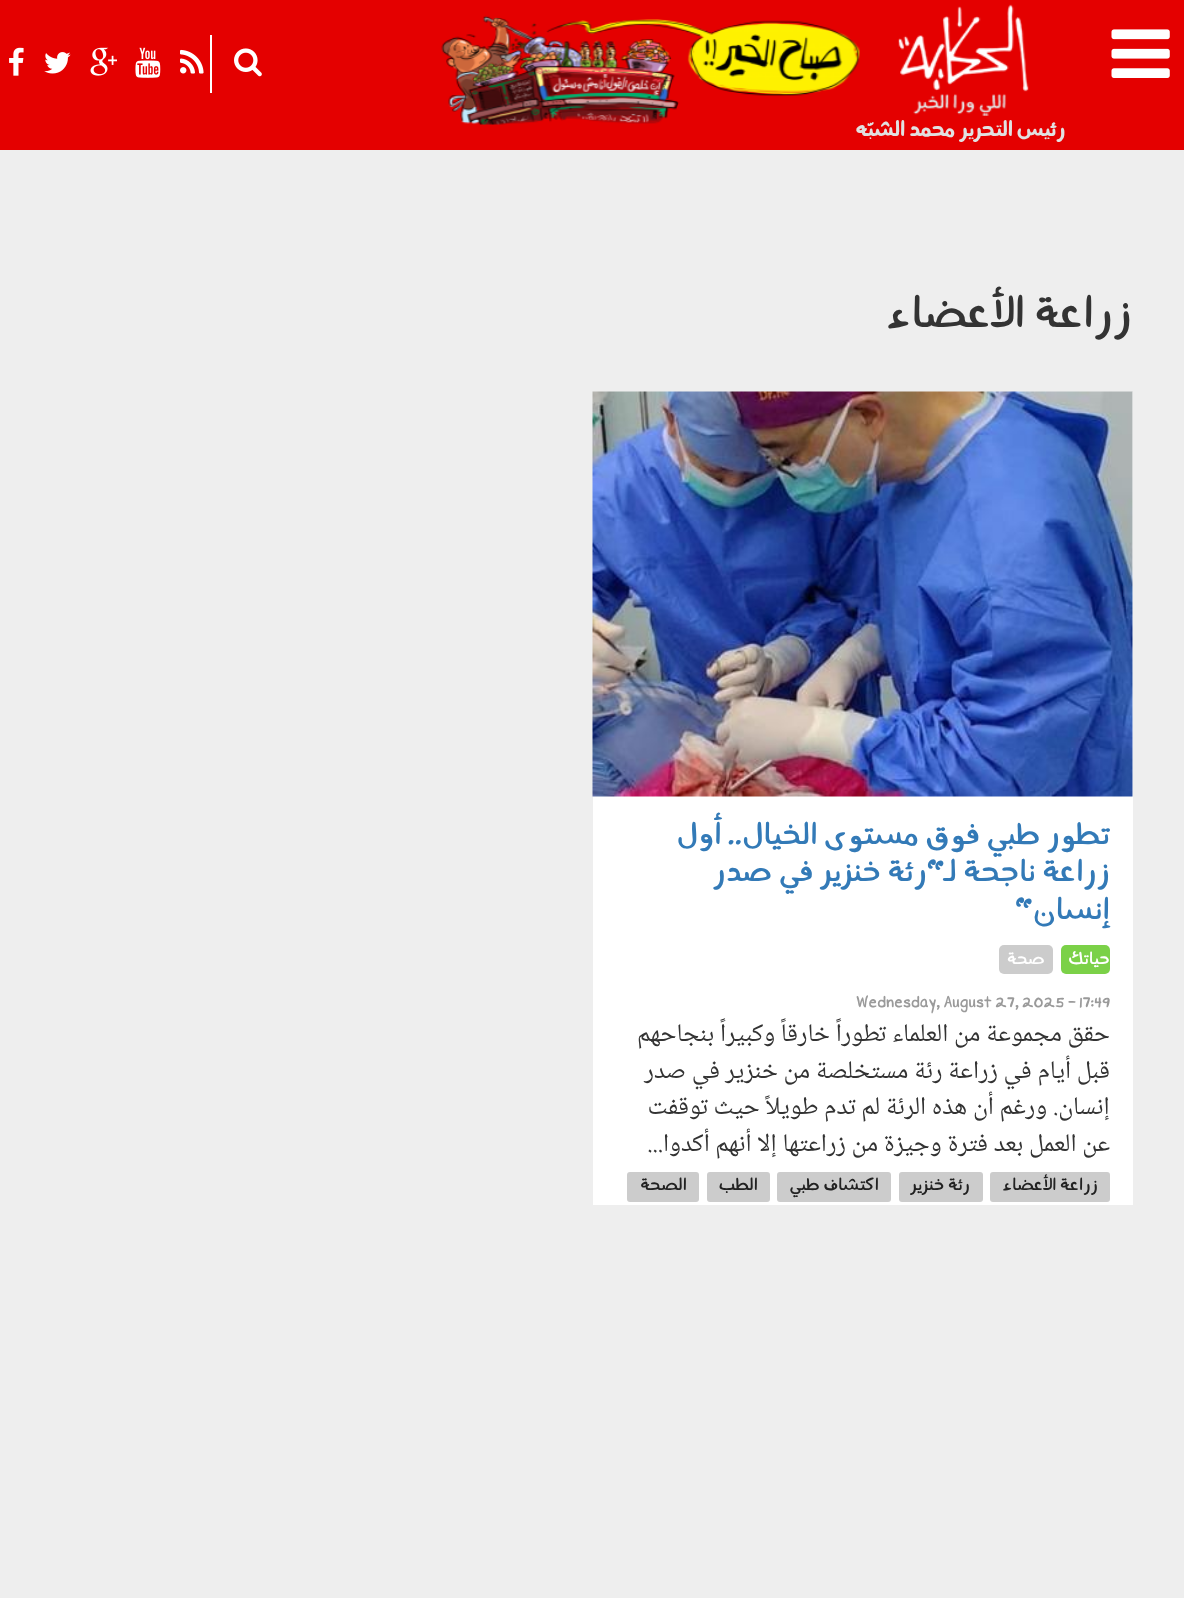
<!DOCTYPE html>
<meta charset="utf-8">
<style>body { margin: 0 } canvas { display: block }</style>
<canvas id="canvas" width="1184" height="1598"></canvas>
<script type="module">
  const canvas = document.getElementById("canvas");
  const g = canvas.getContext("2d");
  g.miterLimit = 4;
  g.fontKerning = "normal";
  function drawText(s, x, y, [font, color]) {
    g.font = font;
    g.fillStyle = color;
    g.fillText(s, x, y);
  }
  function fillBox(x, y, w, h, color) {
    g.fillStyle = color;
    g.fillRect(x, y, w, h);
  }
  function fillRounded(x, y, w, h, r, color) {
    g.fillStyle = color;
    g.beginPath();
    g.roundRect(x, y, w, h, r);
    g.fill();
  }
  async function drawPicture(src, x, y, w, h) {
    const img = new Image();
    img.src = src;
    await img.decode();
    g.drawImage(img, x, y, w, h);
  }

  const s1 = ["bold 25.5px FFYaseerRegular", "#E1E1E1"];
  const s2 = ["54px FFYaseerRegular", "#333333"];
  const s3 = ["37.5px FFYaseerRegular", "#337AB7"];
  const s4 = ["21px FFYaseerRegular", "#FFFFFF"];
  const s5 = ["19.5px FFYaseerRegular", "#9A9A9A"];
  const s6 = ["25.5px Noto Naskh Arabic", "#333333"];
  const s7 = ["21px FFYaseerRegular", "#222222"];

  fillBox(0, 0, 1184, 1598, "#EEEEEE");
  fillBox(0, 0, 1184, 150, "#E40000");
  await drawPicture("pic1.png", 1111, 29, 59, 49);
  await drawPicture("pic2.png", 898, 4, 131, 112);
  await drawPicture("pic3.png", 441, 15, 419, 110);
  fillBox(210, 35, 2, 58, "#FFFFFF");
  await drawPicture("pic4.png", 234, 48, 28, 29);
  await drawPicture("pic5.png", 180, 49, 24, 25);
  await drawPicture("pic6.png", 135, 47, 26, 31);
  await drawPicture("pic7.png", 90, 47, 27, 29);
  await drawPicture("pic8.png", 44, 52, 27, 22);
  await drawPicture("pic9.png", 9, 47, 15, 29);
  g.direction = "rtl";
  drawText("رئيس التحرير محمد الشبّه", 1065, 136, s1);
  drawText("زراعة الأعضاء", 1132, 327, s2);
  fillBox(593, 392, 540, 813, "#FFFFFF");
  await drawPicture("pic10.png", 592, 391, 541, 406);
  drawText("تطور طبي فوق مستوى الخيال.. أول", 1110, 844, s3);
  drawText("زراعة ناجحة لـ\"رئة خنزير في صدر", 1110, 881, s3);
  drawText("إنسان\"", 1110, 919, s3);
  fillRounded(1061, 945, 49, 29, 5, "#7BD148");
  drawText("حياتك", 1110, 964, s4);
  fillRounded(999, 945, 54, 29, 5, "#CCCCCC");
  drawText("صحة", 1045, 964, s4);
  g.direction = "ltr";
  drawText("Wednesday, August 27, 2025 - 17:49", 856, 1007, s5);
  g.direction = "rtl";
  drawText("حقق مجموعة من العلماء تطوراً خارقاً وكبيراً بنجاحهم", 1110, 1041, s6);
  drawText("قبل أيام في زراعة رئة مستخلصة من خنزير في صدر", 1110, 1078, s6);
  drawText("إنسان. ورغم أن هذه الرئة لم تدم طويلاً حيث توقفت", 1110, 1114, s6);
  drawText("عن العمل بعد فترة وجيزة من زراعتها إلا أنهم أكدوا...", 1110, 1151, s6);
  fillRounded(990, 1172, 120, 30, 3, "#CCCCCC");
  drawText("زراعة الأعضاء", 1098, 1190, s7);
  fillRounded(899, 1172, 84, 30, 3, "#CCCCCC");
  drawText("رئة خنزير", 970, 1190, s7);
  fillRounded(777, 1172, 114, 30, 3, "#CCCCCC");
  drawText("اكتشاف طبي", 879, 1190, s7);
  fillRounded(707, 1172, 63, 30, 3, "#CCCCCC");
  drawText("الطب", 758, 1190, s7);
  fillRounded(627, 1172, 72, 30, 3, "#CCCCCC");
  drawText("الصحة", 687, 1190, s7);
</script>
